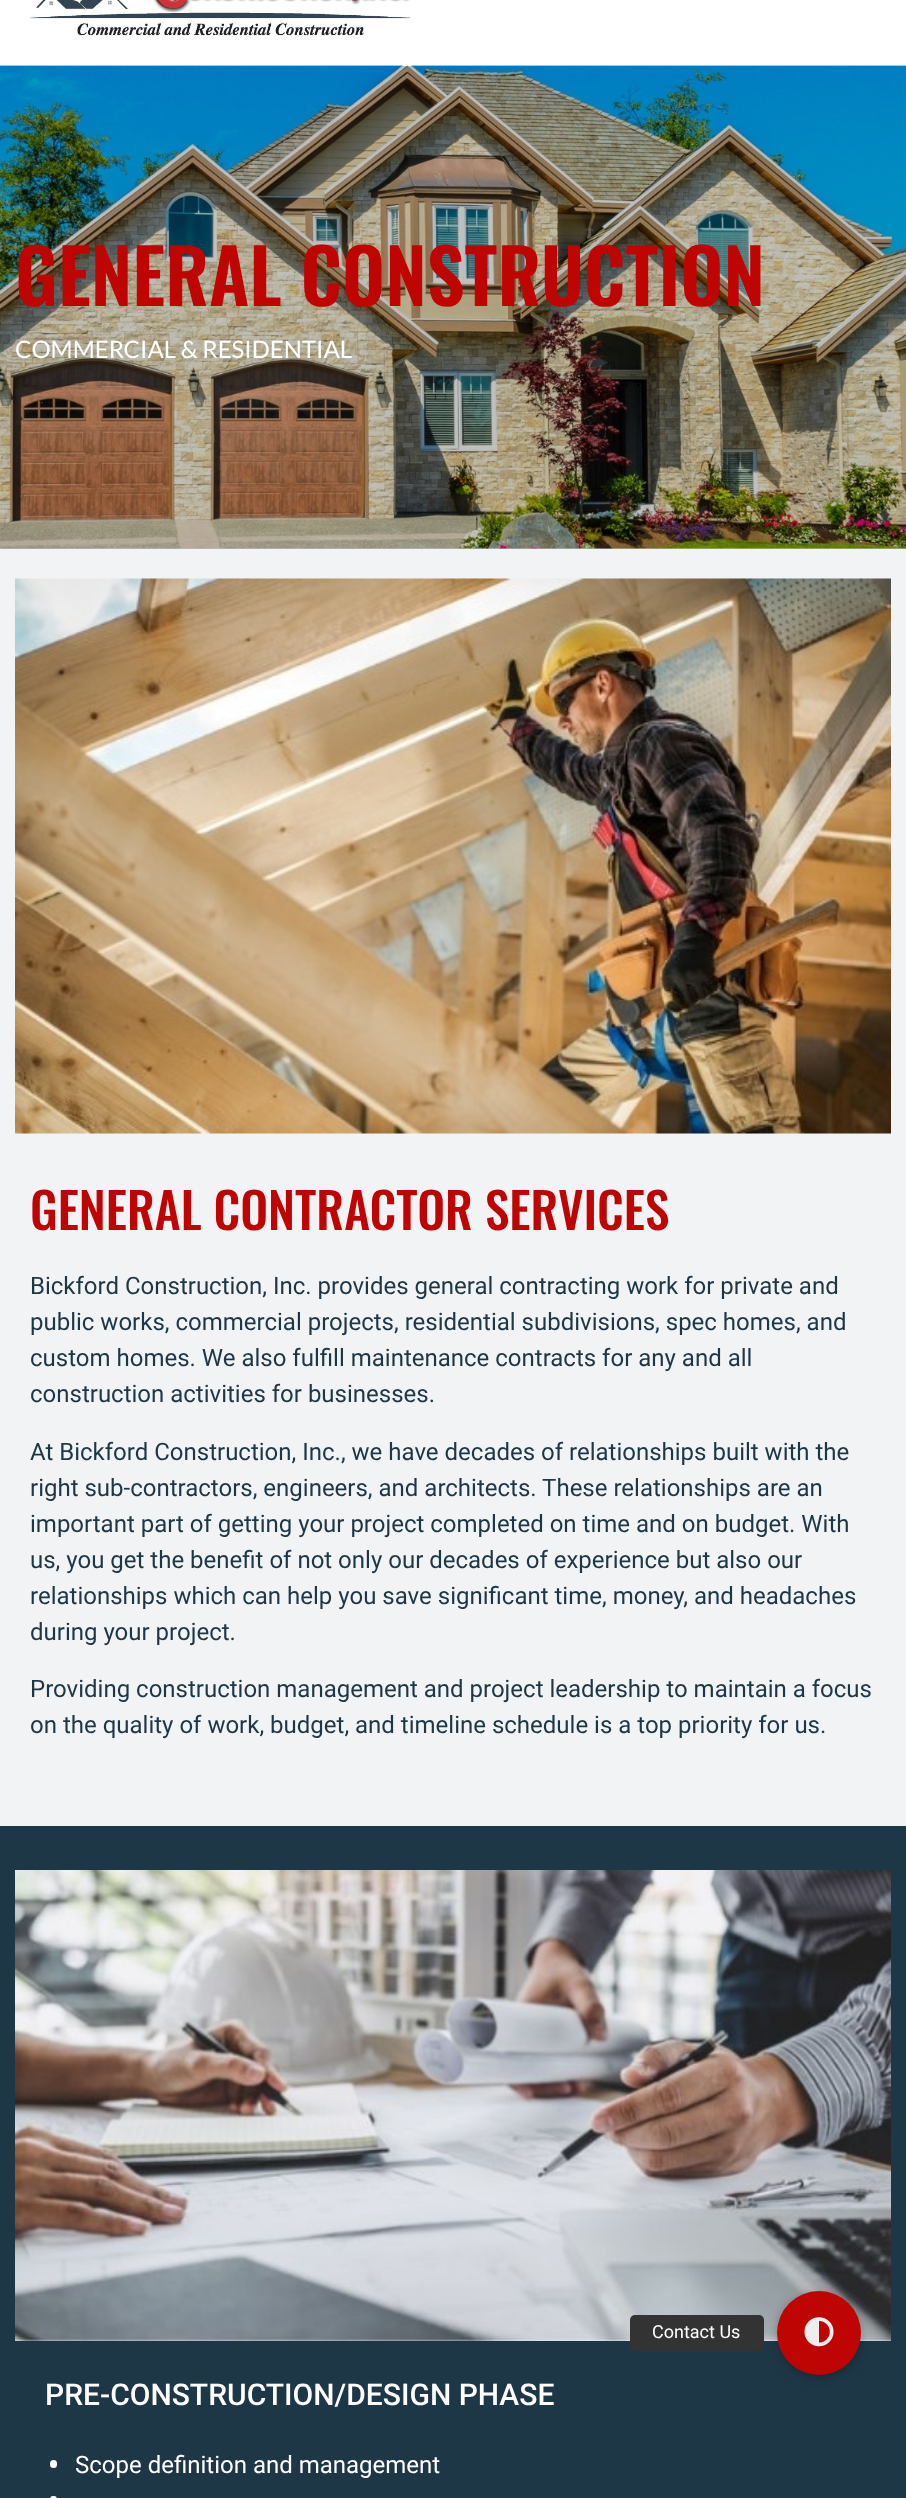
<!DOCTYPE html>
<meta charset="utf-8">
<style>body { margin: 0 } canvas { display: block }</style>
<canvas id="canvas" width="906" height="2498"></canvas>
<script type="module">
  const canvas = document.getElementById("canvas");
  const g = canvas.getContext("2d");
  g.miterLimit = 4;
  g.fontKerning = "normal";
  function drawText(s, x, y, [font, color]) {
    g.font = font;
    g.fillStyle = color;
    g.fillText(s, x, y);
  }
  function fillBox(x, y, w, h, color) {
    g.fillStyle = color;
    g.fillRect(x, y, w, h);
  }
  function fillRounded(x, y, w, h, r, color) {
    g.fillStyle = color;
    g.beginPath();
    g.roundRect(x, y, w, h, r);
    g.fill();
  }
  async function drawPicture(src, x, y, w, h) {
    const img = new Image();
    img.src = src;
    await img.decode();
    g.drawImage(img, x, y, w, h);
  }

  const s1 = ["600 75px Oswald", "#BF0404"];
  const s2 = ["24px Lato", "#FFFFFF"];
  const s3 = ["500 49.5px Oswald", "#BF0404"];
  const s4 = ["24px Roboto", "#1E3747"];
  const s5 = ["500 30px Roboto", "#FFFFFF"];
  const s6 = ["24px Roboto", "#FFFFFF"];
  const s7 = ["18px Roboto", "#FFFFFF"];

  fillBox(0, 0, 906, 2498, "#FFFFFF");
  fillBox(0, 548, 906, 1, "#C2C2C2");
  await drawPicture("pic1.png", 30, 0, 380, 36);
  await drawPicture("pic2.png", 0, 65, 906, 484);
  drawText("GENERAL CONSTRUCTION", 15, 306, s1);
  drawText("COMMERCIAL & RESIDENTIAL", 15, 358, s2);
  fillBox(0, 549, 906, 1277, "#F1F3F4");
  await drawPicture("pic3.png", 15, 578, 876, 556);
  drawText("GENERAL CONTRACTOR SERVICES", 30, 1230, s3);
  drawText("Bickford Construction, Inc. provides general contracting work for private and", 30, 1294, s4);
  drawText("public works, commercial projects, residential subdivisions, spec homes, and", 30, 1330, s4);
  drawText("custom homes. We also fulfill maintenance contracts for any and all", 30, 1366, s4);
  drawText("construction activities for businesses.", 30, 1402, s4);
  drawText("At Bickford Construction, Inc., we have decades of relationships built with the", 30, 1460, s4);
  drawText("right sub-contractors, engineers, and architects. These relationships are an", 30, 1496, s4);
  drawText("important part of getting your project completed on time and on budget. With", 30, 1532, s4);
  drawText("us, you get the benefit of not only our decades of experience but also our", 30, 1568, s4);
  drawText("relationships which can help you save significant time, money, and headaches", 30, 1604, s4);
  drawText("during your project.", 30, 1640, s4);
  drawText("Providing construction management and project leadership to maintain a focus", 30, 1697, s4);
  drawText("on the quality of work, budget, and timeline schedule is a top priority for us.", 30, 1733, s4);
  fillBox(0, 1826, 906, 672, "#1E3747");
  await drawPicture("pic4.png", 15, 1870, 876, 471);
  drawText("PRE-CONSTRUCTION/DESIGN PHASE", 45, 2405, s5);
  fillRounded(50, 2460, 7, 8, 3.5, "#FFFFFF");
  drawText("Scope definition and management", 75, 2473, s6);
  fillRounded(50, 2496, 7, 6, 3.5, "#FFFFFF");
  g.fillStyle = "rgba(0, 0, 0, 0.2)";
  g.filter = "blur(4.5px)";
  g.beginPath();
  g.roundRect(776, 2292, 87, 87, 43.5);
  g.fill();
  g.filter = "none";
  g.fillStyle = "#BF0404";
  g.beginPath();
  g.arc(819, 2333, 42, 0, Math.PI * 2);
  g.fill();
  fillRounded(630, 2315, 134, 36, 5, "#333333");
  drawText("Contact Us", 652, 2338, s7);
  await drawPicture("pic5.png", 804, 2317, 30, 30);
</script>
